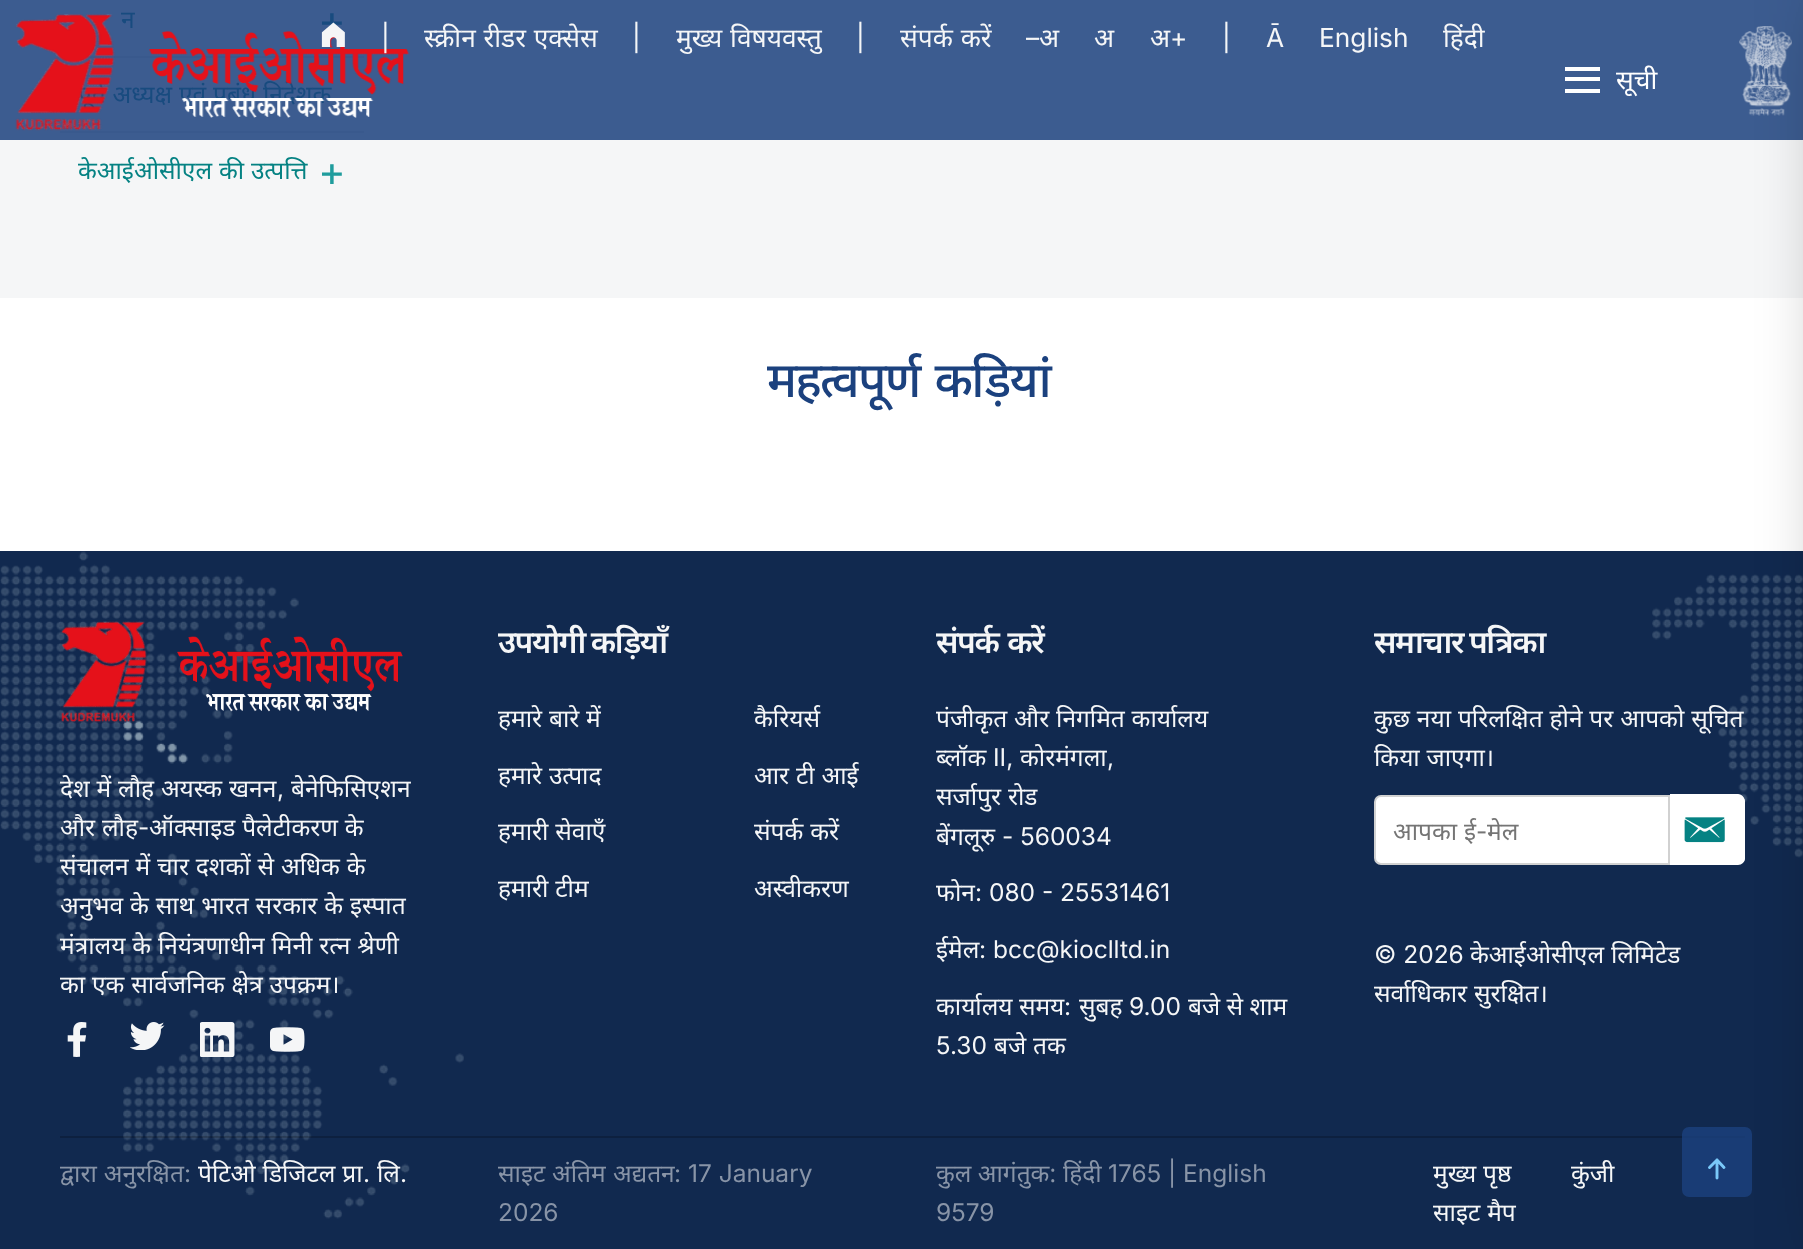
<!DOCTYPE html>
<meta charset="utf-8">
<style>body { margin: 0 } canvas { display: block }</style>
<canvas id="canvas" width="1803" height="1249"></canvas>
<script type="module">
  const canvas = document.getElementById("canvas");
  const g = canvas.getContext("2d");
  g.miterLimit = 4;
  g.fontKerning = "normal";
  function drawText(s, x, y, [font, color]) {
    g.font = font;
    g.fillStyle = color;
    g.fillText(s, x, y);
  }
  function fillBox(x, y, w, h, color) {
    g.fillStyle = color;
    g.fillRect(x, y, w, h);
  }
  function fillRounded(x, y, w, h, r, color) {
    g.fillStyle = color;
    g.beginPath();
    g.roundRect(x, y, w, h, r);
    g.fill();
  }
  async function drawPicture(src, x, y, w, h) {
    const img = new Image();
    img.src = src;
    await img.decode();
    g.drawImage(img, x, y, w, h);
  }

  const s1 = ["24.5px Noto Sans", "#184B7F"];
  const s2 = ["42px Inter", "#184B7F"];
  const s3 = ["24.5px Noto Sans", "#058283"];
  const s4 = ["42px Inter", "#1F9C9D"];
  const s5 = ["26.25px Inter", "#F5F6F7"];
  const s6 = ["26.25px Noto Sans", "#F5F6F7"];
  const s7 = ["26.25px Noto Sans", "#FFFFFF"];
  const s8 = ["500 49px Noto Sans", "#1B417E"];
  const s9 = ["24.5px Noto Sans", "#F5F6F7"];
  const s10 = ["24.5px Inter", "#F5F6F7"];
  const s11 = ["600 31.5px Noto Sans", "#F5F6F7"];
  const s12 = ["24.5px Noto Sans", "#757575"];
  const s13 = ["24.5px Inter", "#757575"];
  const s14 = ["24.5px Noto Sans", "#8894A7"];
  const s15 = ["24.5px Inter", "#8894A7"];

  fillBox(0, 0, 1803, 1249, "#F5F6F7");
  fillBox(0, 0, 1803, 140, "#3C5C90");
  fillBox(60, 56, 304, 2, "#39598D");
  drawText("न", 121, 28, s1);
  drawText("+", 318, 35, s2);
  fillBox(60, 131, 304, 2, "#39598D");
  g.wordSpacing = "0.5px";
  drawText("पूर्व अध्‍यक्ष एवं प्रबंध निदेशक", 78, 103, s1);
  drawText("केआईओसीएल की उत्पत्ति", 78, 179, s3);
  g.wordSpacing = "0px";
  drawText("+", 318, 186, s4);
  await drawPicture("pic2.png", 15, 14, 395, 117);
  await drawPicture("pic1.png", 321, 22, 24, 25);
  drawText("|", 381, 47, s5);
  g.wordSpacing = "1px";
  drawText("स्क्रीन रीडर एक्सेस", 424, 47, s6);
  g.wordSpacing = "0px";
  drawText("|", 632, 47, s5);
  g.wordSpacing = "1px";
  drawText("मुख्य विषयवस्तु", 676, 47, s6);
  g.wordSpacing = "0px";
  drawText("|", 856, 47, s5);
  g.wordSpacing = "1px";
  drawText("संपर्क करें", 900, 47, s6);
  g.wordSpacing = "0px";
  drawText("–", 1026, 47, s5);
  drawText("अ", 1039, 47, s6);
  drawText("अ", 1094, 47, s6);
  drawText("अ", 1150, 47, s6);
  drawText("+", 1170, 47, s5);
  drawText("|", 1222, 47, s5);
  drawText("Ā", 1266, 47, s5);
  drawText("English", 1319, 47, s5);
  drawText("हिंदी", 1443, 47, s6);
  await drawPicture("pic3.png", 1739, 26, 53, 90);
  fillBox(0, 298, 1803, 253, "#FFFFFF");
  fillBox(0, 551, 1803, 698, "#11294F");
  await drawPicture("pic4.png", 0, 551, 1803, 668);
  g.fillStyle = "#FFFFFF";
  g.beginPath();
  g.roundRect(1670, 795, 75, 70, [0, 7, 7, 0]);
  g.fill();
  await drawPicture("pic10.png", 1684, 817, 41, 26);
  g.beginPath();
  g.moveTo(1670, 794);
  g.lineTo(1738, 794);
  g.bezierCurveTo(1742, 794, 1745, 798, 1745, 802);
  g.lineTo(1745, 858);
  g.bezierCurveTo(1745, 861, 1742, 864, 1738, 864);
  g.lineTo(1670, 864);
  g.closePath();
  g.moveTo(1670, 798);
  g.lineTo(1738, 798);
  g.bezierCurveTo(1740, 798, 1741, 800, 1741, 802);
  g.lineTo(1741, 858);
  g.bezierCurveTo(1741, 859, 1740, 861, 1738, 861);
  g.lineTo(1670, 861);
  g.closePath();
  g.fill("evenodd");
  fillBox(60, 1136, 1685, 2, "rgba(0, 0, 0, 0.2)");
  g.fillStyle = "rgba(0, 0, 0, 0.7)";
  g.filter = "blur(44px)";
  g.beginPath();
  g.rect(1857, 0, 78, 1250);
  g.fill();
  g.filter = "none";
  fillBox(1565, 77, 35, 4, "#FFFFFF");
  fillBox(1565, 67, 35, 4, "#FFFFFF");
  drawText("सूची", 1616, 89, s7);
  fillBox(1565, 89, 35, 4, "#FFFFFF");
  g.letterSpacing = "-1.75px";
  g.wordSpacing = "4px";
  drawText("महत्वपूर्ण कड़ियां", 767, 397, s8);
  await drawPicture("pic5.png", 61, 621, 342, 102);
  g.letterSpacing = "0px";
  g.wordSpacing = "0.5px";
  drawText("देश में लौह अयस्क खनन", 60, 797, s9);
  g.wordSpacing = "0px";
  drawText(",", 277, 797, s10);
  drawText("बेनेफिसिएशन", 291, 797, s9);
  g.wordSpacing = "0.5px";
  drawText("और लौह", 60, 836, s9);
  g.wordSpacing = "0px";
  drawText("-", 138, 836, s10);
  g.wordSpacing = "0.5px";
  drawText("ऑक्साइड पैलेटीकरण के", 149, 836, s9);
  drawText("संचालन में चार दशकों से अधिक के", 60, 875, s9);
  drawText("अनुभव के साथ भारत सरकार के इस्पात", 60, 914, s9);
  drawText("मंत्रालय के नियंत्रणाधीन मिनी रत्न श्रेणी", 60, 954, s9);
  drawText("का एक सार्वजनिक क्षेत्र उपक्रम।", 60, 993, s9);
  await drawPicture("pic6.png", 67, 1022, 20, 35);
  await drawPicture("pic7.png", 130, 1022, 35, 28);
  await drawPicture("pic8.png", 200, 1022, 35, 35);
  await drawPicture("pic9.png", 270, 1027, 35, 25);
  g.letterSpacing = "-1.4px";
  g.wordSpacing = "-1px";
  drawText("उपयोगी कड़ियाँ", 498, 653, s11);
  g.letterSpacing = "0px";
  g.wordSpacing = "0.5px";
  drawText("हमारे बारे में", 498, 727, s9);
  drawText("हमारे उत्पाद", 498, 784, s9);
  drawText("हमारी सेवाएँ", 498, 840, s9);
  drawText("हमारी टीम", 498, 897, s9);
  g.wordSpacing = "0px";
  drawText("कैरियर्स", 754, 727, s9);
  g.wordSpacing = "0.5px";
  drawText("आर टी आई", 754, 784, s9);
  drawText("संपर्क करें", 754, 840, s9);
  g.wordSpacing = "0px";
  drawText("अस्वीकरण", 754, 897, s9);
  g.letterSpacing = "-1.4px";
  g.wordSpacing = "2px";
  drawText("संपर्क करें", 936, 653, s11);
  g.letterSpacing = "0px";
  g.wordSpacing = "0.5px";
  drawText("पंजीकृत और निगमित कार्यालय", 936, 727, s9);
  g.wordSpacing = "0px";
  drawText("ब्लॉक", 936, 766, s9);
  drawText("II,", 993, 766, s10);
  drawText("कोरमंगला", 1020, 766, s9);
  drawText(",", 1107, 766, s10);
  g.wordSpacing = "0.5px";
  drawText("सर्जापुर रोड", 936, 805, s9);
  g.wordSpacing = "0px";
  drawText("बेंगलूरु", 936, 845, s9);
  drawText("- 560034", 1002, 845, s10);
  drawText("फोन", 936, 901, s9);
  drawText(": 080 - 25531461", 975, 901, s10);
  drawText("ईमेल", 936, 958, s9);
  drawText(": bcc@kioclltd.in", 979, 958, s10);
  drawText("कार्यालय समय", 936, 1015, s9);
  drawText(":", 1064, 1015, s10);
  drawText("सुबह", 1079, 1015, s9);
  drawText("9.00", 1129, 1015, s10);
  drawText("बजे से शाम", 1188, 1015, s9);
  drawText("5.30", 936, 1054, s10);
  g.wordSpacing = "0.5px";
  drawText("बजे तक", 994, 1054, s9);
  g.letterSpacing = "-1.4px";
  g.wordSpacing = "-1px";
  drawText("समाचार पत्रिका", 1374, 653, s11);
  g.letterSpacing = "0px";
  g.wordSpacing = "0.5px";
  drawText("कुछ नया परिलक्षित होने पर आपको सूचित", 1374, 727, s9);
  drawText("किया जाएगा।", 1374, 766, s9);
  g.fillStyle = "#FFFFFF";
  g.beginPath();
  g.roundRect(1375, 796, 294, 68, [6, 0, 0, 6]);
  g.fill();
  g.strokeStyle = "#D1D1D1";
  g.lineWidth = 2;
  g.stroke();
  drawText("आपका ई", 1393, 840, s12);
  g.wordSpacing = "0px";
  drawText("-", 1476, 840, s13);
  drawText("मेल", 1487, 840, s12);
  drawText("© 2026", 1374, 963, s10);
  drawText("केआईओसीएल", 1470, 963, s9);
  drawText("लिमिटेड", 1611, 963, s9);
  g.wordSpacing = "0.5px";
  drawText("सर्वाधिकार सुरक्षित।", 1374, 1002, s9);
  drawText("द्वारा अनुरक्षित", 60, 1182, s14);
  g.wordSpacing = "0px";
  drawText(":", 184, 1182, s15);
  g.wordSpacing = "0.5px";
  drawText("पेटिओ डिजिटल प्रा", 198, 1182, s9);
  g.wordSpacing = "0px";
  drawText("लि", 377, 1182, s9);
  drawText(".", 363, 1182, s10);
  drawText(".", 400, 1182, s10);
  drawText("साइट", 498, 1182, s14);
  drawText("अंतिम", 552, 1182, s14);
  drawText("अद्यतन", 613, 1182, s14);
  drawText(": 17 January", 674, 1182, s15);
  drawText("2026", 498, 1221, s15);
  drawText("कुल आगंतुक:", 936, 1182, s14);
  drawText("हिंदी", 1063, 1182, s14);
  drawText("1765 | English", 1108, 1182, s15);
  drawText("9579", 936, 1221, s15);
  g.wordSpacing = "0.5px";
  drawText("मुख्य पृष्ठ", 1433, 1182, s9);
  g.wordSpacing = "0px";
  drawText("कुंजी", 1571, 1182, s9);
  g.wordSpacing = "0.5px";
  drawText("साइट मैप", 1433, 1221, s9);
  fillRounded(1682, 1127, 70, 70, 7, "rgba(27, 65, 126, 0.8)");
  g.beginPath();
  g.moveTo(1709.5, 1167.5);
  g.lineTo(1717, 1160);
  g.moveTo(1717, 1160);
  g.lineTo(1724, 1167.5);
  g.moveTo(1717, 1160);
  g.lineTo(1717, 1178);
  g.strokeStyle = "#7AC9F9";
  g.lineWidth = 2.9;
  g.lineCap = "round";
  g.lineJoin = "round";
  g.stroke();
</script>
